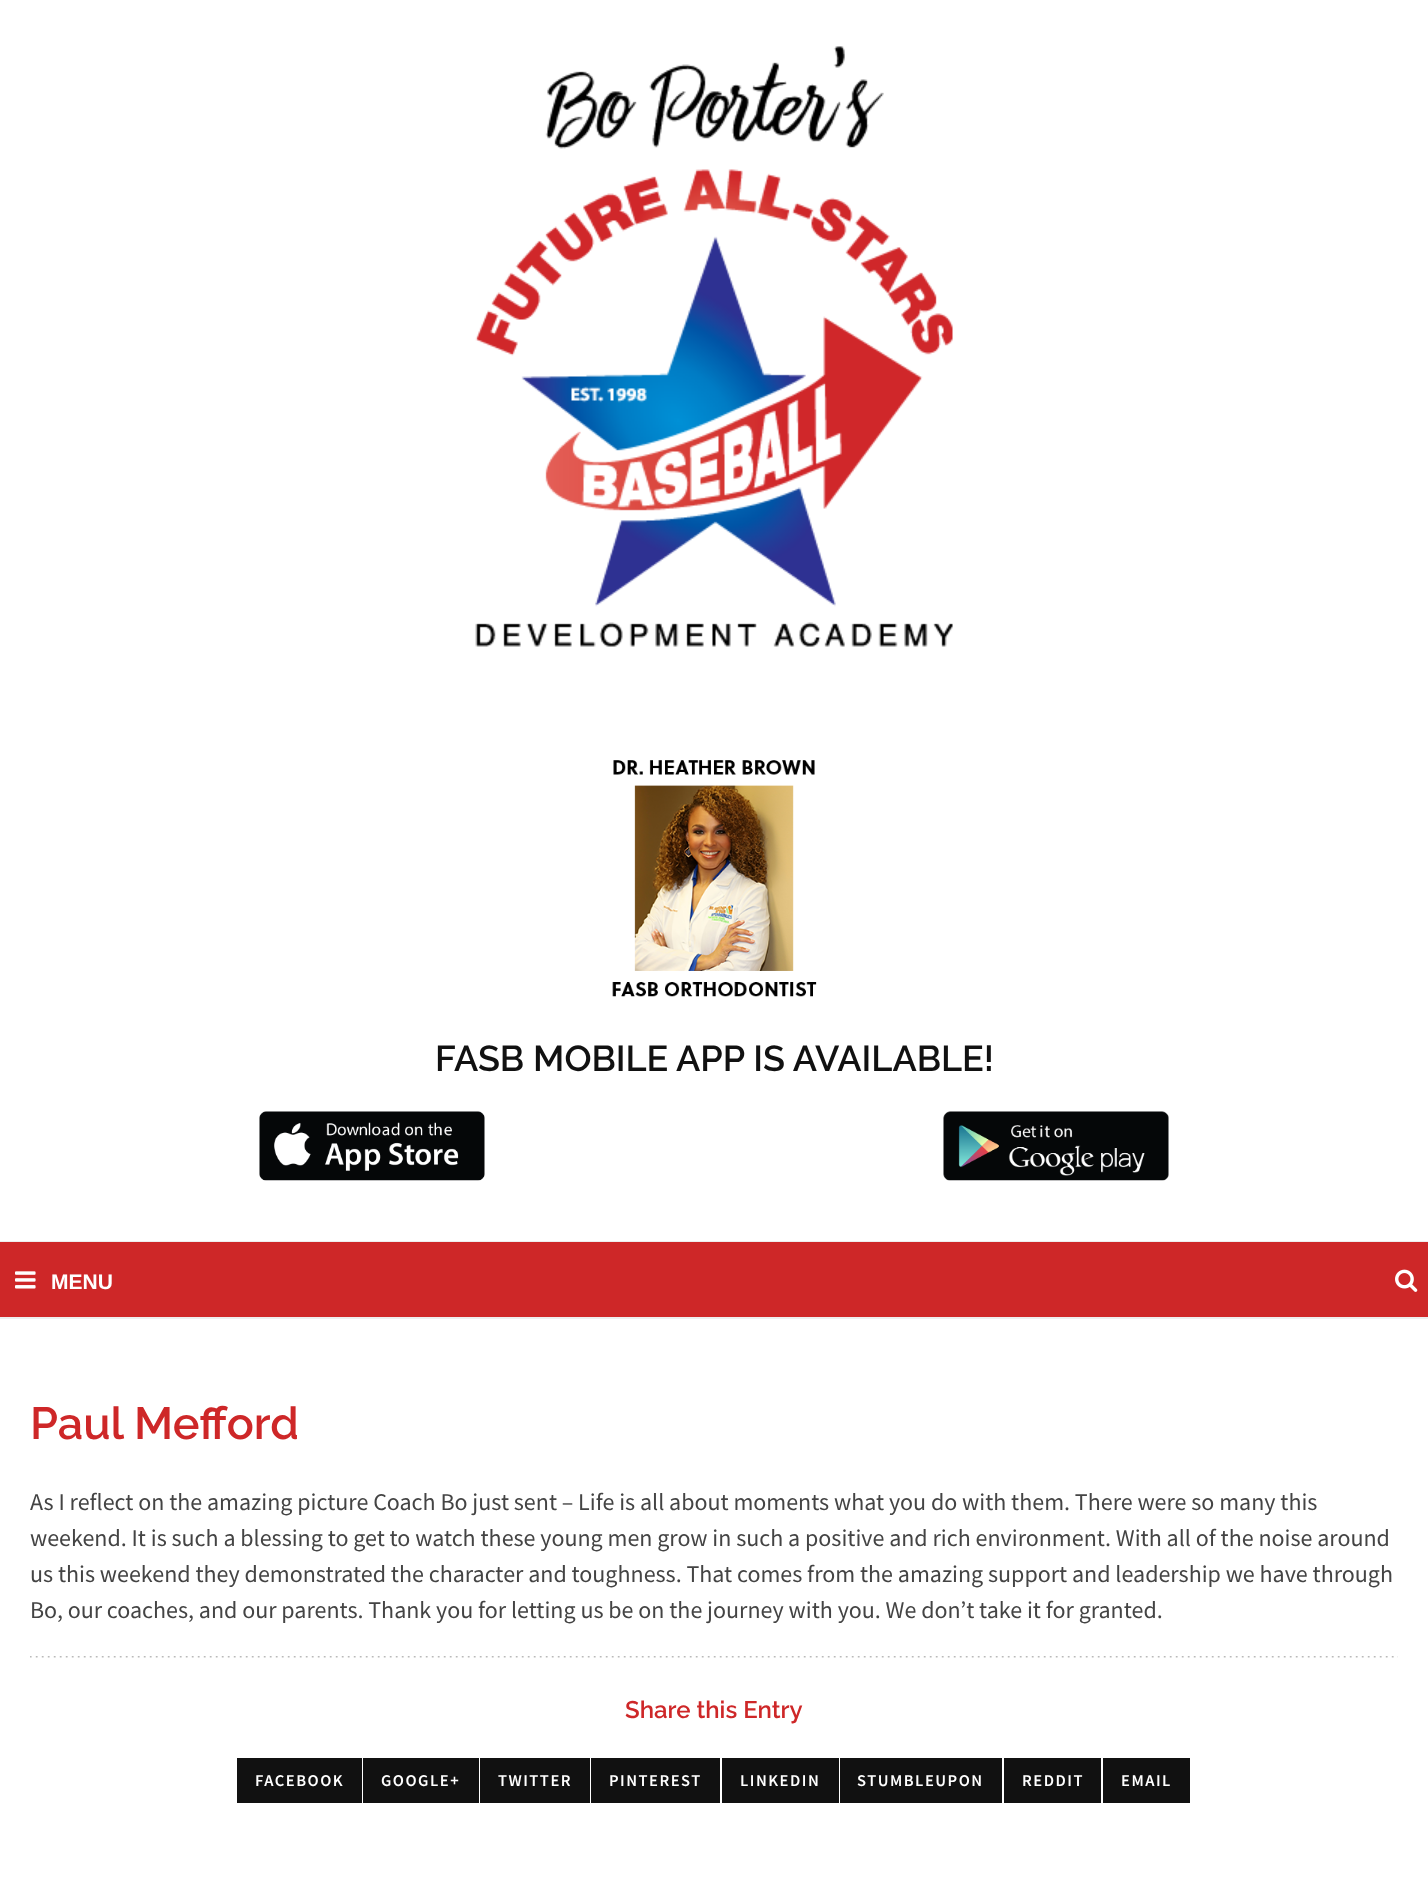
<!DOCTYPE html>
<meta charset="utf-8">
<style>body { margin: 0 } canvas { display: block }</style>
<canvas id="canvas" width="1428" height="1900"></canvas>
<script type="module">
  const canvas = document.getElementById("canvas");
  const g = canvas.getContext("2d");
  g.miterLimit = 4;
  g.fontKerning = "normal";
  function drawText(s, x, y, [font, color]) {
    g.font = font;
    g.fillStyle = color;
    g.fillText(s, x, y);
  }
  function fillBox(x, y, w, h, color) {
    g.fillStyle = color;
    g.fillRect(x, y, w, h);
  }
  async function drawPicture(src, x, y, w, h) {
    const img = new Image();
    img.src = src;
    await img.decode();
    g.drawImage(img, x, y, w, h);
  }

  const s1 = ["600 36px Raleway", "#111111"];
  const s2 = ["bold 21px Liberation Sans", "#FFFFFF"];
  const s3 = ["600 45px Raleway", "#CE2728"];
  const s4 = ["24px Source Sans Pro", "#444444"];
  const s5 = ["600 24px Raleway", "#CE2728"];
  const s6 = ["600 16.5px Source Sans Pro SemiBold", "#FFFFFF"];

  fillBox(0, 0, 1428, 1900, "#FFFFFF");
  fillBox(0, 1241, 1428, 1, "#EEEEEE");
  await drawPicture("pic1.png", 475, 46, 478, 601);
  await drawPicture("pic2.png", 612, 760, 205, 237);
  drawText("FASB MOBILE APP IS AVAILABLE!", 435, 1071, s1);
  await drawPicture("pic3.png", 259, 1111, 226, 70);
  await drawPicture("pic4.png", 943, 1111, 226, 70);
  fillBox(0, 1242, 1428, 75, "#CE2728");
  fillBox(0, 1317, 1428, 2, "#EEEEEE");
  await drawPicture("pic5.png", 15, 1271, 21, 18);
  drawText("MENU", 51, 1289, s2);
  await drawPicture("pic6.png", 1395, 1269, 23, 23);
  drawText("Paul Mefford", 30, 1439, s3);
  drawText("As I reflect on the amazing picture Coach Bo just sent – Life is all about moments what you do with them. There were so many this", 30, 1510, s4);
  drawText("weekend. It is such a blessing to get to watch these young men grow in such a positive and rich environment. With all of the noise around", 30, 1546, s4);
  drawText("us this weekend they demonstrated the character and toughness. That comes from the amazing support and leadership we have through", 30, 1582, s4);
  drawText("Bo, our coaches, and our parents. Thank you for letting us be on the journey with you. We don’t take it for granted.", 30, 1618, s4);
  await drawPicture("pic7.png", 30, 1656, 1368, 2);
  drawText("Share this Entry", 625, 1718, s5);
  fillBox(237, 1758, 125, 45, "#111111");
  g.letterSpacing = "1.5px";
  drawText("FACEBOOK", 255, 1786, s6);
  fillBox(363, 1758, 116, 45, "#111111");
  drawText("GOOGLE+", 381, 1786, s6);
  fillBox(480, 1758, 110, 45, "#111111");
  drawText("TWITTER", 498, 1786, s6);
  fillBox(591, 1758, 129, 45, "#111111");
  drawText("PINTEREST", 609, 1786, s6);
  fillBox(722, 1758, 117, 45, "#111111");
  drawText("LINKEDIN", 740, 1786, s6);
  fillBox(840, 1758, 162, 45, "#111111");
  drawText("STUMBLEUPON", 857, 1786, s6);
  fillBox(1004, 1758, 97, 45, "#111111");
  drawText("REDDIT", 1022, 1786, s6);
  fillBox(1103, 1758, 87, 45, "#111111");
  drawText("EMAIL", 1121, 1786, s6);
</script>
